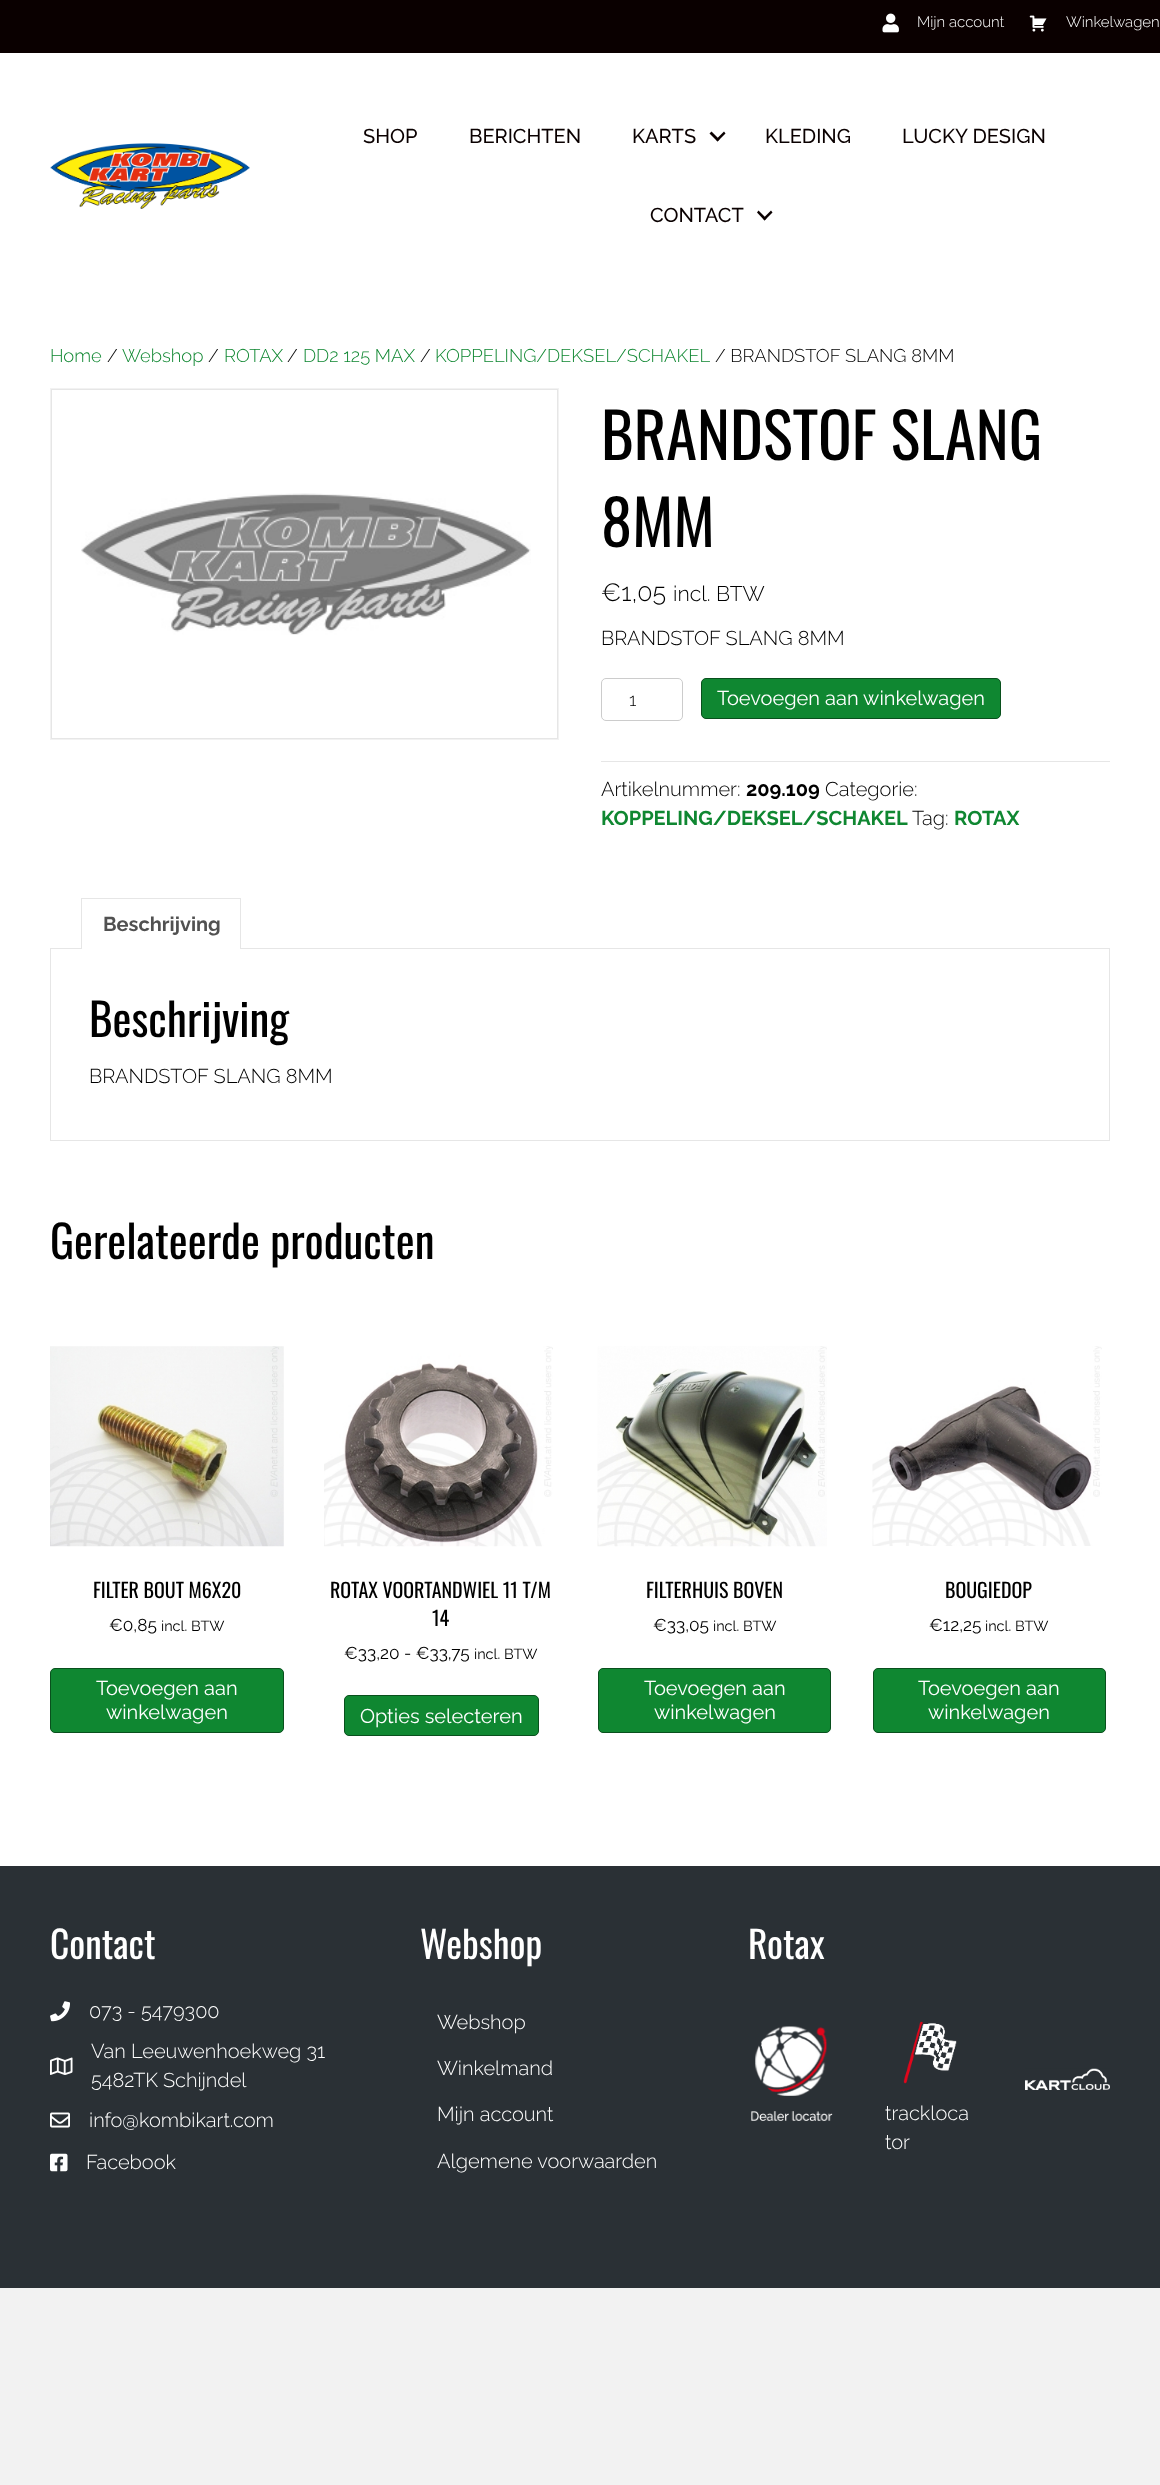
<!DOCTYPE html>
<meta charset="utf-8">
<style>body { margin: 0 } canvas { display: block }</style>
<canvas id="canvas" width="1160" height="2485"></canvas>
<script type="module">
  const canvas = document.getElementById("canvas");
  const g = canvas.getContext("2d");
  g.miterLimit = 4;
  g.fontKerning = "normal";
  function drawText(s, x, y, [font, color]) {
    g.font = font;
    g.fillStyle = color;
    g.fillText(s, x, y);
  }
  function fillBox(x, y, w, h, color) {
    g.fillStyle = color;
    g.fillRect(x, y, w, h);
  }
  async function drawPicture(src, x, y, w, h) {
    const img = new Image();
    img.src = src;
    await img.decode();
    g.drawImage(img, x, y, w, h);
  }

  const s1 = ["300 15px Raleway", "#FFFFFF"];
  const s2 = ["500 20px Raleway", "#0A0000"];
  const s3 = ["300 18.4px Raleway", "#0F8731"];
  const s4 = ["300 18.4px Raleway", "#000000"];
  const s5 = ["62.5px Oswald", "#000000"];
  const s6 = ["300 25px Raleway", "#000000"];
  const s7 = ["300 21.25px Raleway", "#000000"];
  const s8 = ["300 20px Raleway", "#000000"];
  const s9 = ["300 18px Raleway", "#000000"];
  const s10 = ["20px Raleway", "#FFFFFF"];
  const s11 = ["bold 20px Raleway", "#000000"];
  const s12 = ["bold 20px Raleway", "#0F8731"];
  const s13 = ["bold 20px Raleway", "#515151"];
  const s14 = ["45px Oswald", "#000000"];
  const s15 = ["20px Oswald", "#000000"];
  const s16 = ["17.25px Raleway", "#000000"];
  const s17 = ["14.5px Raleway", "#000000"];
  const s18 = ["37.5px Oswald", "#FFFFFF"];
  const s19 = ["300 20px Raleway", "#FFFFFF"];

  fillBox(0, 0, 1160, 2485, "#F2F2F2");
  fillBox(0, 0, 1160, 53, "#0A0000");
  await drawPicture("pic1.png", 882, 13, 17, 20);
  drawText("Mijn account", 917, 27, s1);
  await drawPicture("pic2.png", 1029, 15, 18, 17);
  drawText("Winkelwagen", 1066, 27, s1);
  fillBox(0, 53, 1160, 1813, "#FFFFFF");
  await drawPicture("pic3.png", 50, 143, 200, 66);
  drawText("SHOP", 363, 143, s2);
  drawText("BERICHTEN", 469, 143, s2);
  drawText("KARTS", 632, 143, s2);
  g.beginPath();
  g.moveTo(724, 131.5);
  g.lineTo(725.5, 133.5);
  g.lineTo(717.5, 141.5);
  g.lineTo(716, 139.5);
  g.closePath();
  g.fill();
  g.beginPath();
  g.moveTo(711.5, 131.5);
  g.lineTo(719.5, 139.5);
  g.lineTo(717.5, 141.5);
  g.lineTo(709.5, 133.5);
  g.closePath();
  g.fill();
  drawText("KLEDING", 765, 143, s2);
  drawText("LUCKY DESIGN", 902, 143, s2);
  drawText("CONTACT", 650, 222, s2);
  g.beginPath();
  g.moveTo(771, 210.5);
  g.lineTo(772.5, 212.5);
  g.lineTo(764.5, 220.5);
  g.lineTo(763, 218.5);
  g.closePath();
  g.fill();
  g.beginPath();
  g.moveTo(758.5, 210.5);
  g.lineTo(766.5, 218.5);
  g.lineTo(764.5, 220.5);
  g.lineTo(757, 212.5);
  g.closePath();
  g.fill();
  drawText("Home", 50, 362, s3);
  drawText("/", 107, 362, s4);
  drawText("Webshop", 122, 362, s3);
  drawText("/", 208, 362, s4);
  drawText("ROTAX", 224, 362, s3);
  drawText("/", 287, 362, s4);
  drawText("DD2 125 MAX", 303, 362, s3);
  drawText("/", 420, 362, s4);
  drawText("KOPPELING/DEKSEL/SCHAKEL", 435, 362, s3);
  drawText("/ BRANDSTOF SLANG 8MM", 715, 362, s4);
  g.strokeStyle = "#F2F2F2";
  g.strokeRect(50.5, 388.5, 508, 351);
  g.strokeStyle = "#E6E6E6";
  g.strokeRect(51.5, 389.5, 506, 349);
  await drawPicture("pic4.png", 81, 493, 450, 142);
  drawText("BRANDSTOF SLANG", 601, 460, s5);
  drawText("8MM", 601, 547, s5);
  drawText("€1,05", 601, 601, s6);
  drawText("incl. BTW", 673, 601, s7);
  drawText("BRANDSTOF SLANG 8MM", 601, 645, s8);
  g.beginPath();
  g.roundRect(601.5, 678.5, 81, 42, 4.5);
  g.strokeStyle = "#CCCCCC";
  g.stroke();
  drawText("1", 629, 706, s9);
  g.fillStyle = "#0F8731";
  g.beginPath();
  g.roundRect(701.5, 678.5, 299, 40, 4.5);
  g.fill();
  g.strokeStyle = "#09501D";
  g.stroke();
  drawText("Toevoegen aan winkelwagen", 717, 705, s10);
  fillBox(601, 761, 509, 1, "#E6E6E6");
  drawText("Artikelnummer:", 601, 796, s8);
  drawText("209.109", 746, 796, s11);
  drawText("Categorie:", 825, 796, s8);
  drawText("KOPPELING/DEKSEL/SCHAKEL", 601, 825, s12);
  drawText("Tag:", 912, 825, s8);
  drawText("ROTAX", 954, 825, s12);
  fillBox(50, 948, 1060, 1, "#E6E6E6");
  fillBox(82, 948, 158, 1, "#FFFFFF");
  fillBox(81, 898, 160, 1, "#E6E6E6");
  fillBox(240, 898, 1, 51, "#E6E6E6");
  fillBox(81, 898, 1, 51, "#E6E6E6");
  drawText("Beschrijving", 103, 931, s13);
  fillBox(1109, 949, 1, 192, "#E6E6E6");
  fillBox(50, 1140, 1060, 1, "#E6E6E6");
  fillBox(50, 949, 1, 192, "#E6E6E6");
  drawText("Beschrijving", 89, 1037, s14);
  drawText("BRANDSTOF SLANG 8MM", 89, 1083, s8);
  drawText("Gerelateerde producten", 50, 1259, s14);
  await drawPicture("pic5.png", 50, 1346, 234, 201);
  drawText("FILTER BOUT M6X20", 93, 1598, s15);
  drawText("€0,85", 109, 1631, s16);
  drawText("incl. BTW", 161, 1631, s17);
  g.fillStyle = "#0F8731";
  g.beginPath();
  g.roundRect(50.5, 1668.5, 233, 64, 4.5);
  g.fill();
  g.stroke();
  drawText("Toevoegen aan", 96, 1695, s10);
  drawText("winkelwagen", 106, 1719, s10);
  await drawPicture("pic6.png", 324, 1346, 229, 201);
  drawText("ROTAX VOORTANDWIEL 11 T/M", 330, 1598, s15);
  drawText("14", 432, 1626, s15);
  drawText("€33,20 - €33,75", 344, 1659, s16);
  drawText("incl. BTW", 474, 1659, s17);
  g.fillStyle = "#0F8731";
  g.beginPath();
  g.roundRect(344.5, 1695.5, 194, 40, 4.5);
  g.fill();
  g.stroke();
  drawText("Opties selecteren", 360, 1723, s10);
  await drawPicture("pic7.png", 597, 1346, 230, 201);
  drawText("FILTERHUIS BOVEN", 646, 1598, s15);
  drawText("€33,05", 653, 1631, s16);
  drawText("incl. BTW", 713, 1631, s17);
  g.fillStyle = "#0F8731";
  g.beginPath();
  g.roundRect(598.5, 1668.5, 232, 64, 4.5);
  g.fill();
  g.stroke();
  drawText("Toevoegen aan", 644, 1695, s10);
  drawText("winkelwagen", 654, 1719, s10);
  await drawPicture("pic8.png", 872, 1346, 230, 200);
  drawText("BOUGIEDOP", 945, 1598, s15);
  drawText("€12,25", 929, 1631, s16);
  drawText("incl. BTW", 985, 1631, s17);
  g.fillStyle = "#0F8731";
  g.beginPath();
  g.roundRect(873.5, 1668.5, 232, 64, 4.5);
  g.fill();
  g.stroke();
  drawText("Toevoegen aan", 918, 1695, s10);
  drawText("winkelwagen", 928, 1719, s10);
  fillBox(0, 1866, 1160, 422, "#2A3035");
  drawText("Contact", 50, 1959, s18);
  await drawPicture("pic9.png", 50, 2001, 20, 21);
  drawText("073 - 5479300", 89, 2018, s19);
  await drawPicture("pic10.png", 50, 2057, 23, 18);
  drawText("Van Leeuwenhoekweg 31", 91, 2058, s19);
  drawText("5482TK Schijndel", 91, 2087, s19);
  await drawPicture("pic11.png", 50, 2112, 20, 16);
  drawText("info@kombikart.com", 89, 2127, s19);
  await drawPicture("pic12.png", 50, 2153, 18, 19);
  drawText("Facebook", 86, 2169, s19);
  drawText("Webshop", 420, 1959, s18);
  drawText("Webshop", 437, 2029, s19);
  drawText("Winkelmand", 437, 2075, s19);
  drawText("Mijn account", 437, 2121, s19);
  drawText("Algemene voorwaarden", 437, 2168, s19);
  drawText("Rotax", 748, 1959, s18);
  await drawPicture("pic13.png", 751, 2026, 82, 95);
  await drawPicture("pic14.png", 1025, 2068, 85, 22);
  await drawPicture("pic15.png", 903, 2021, 54, 63);
  drawText("trackloca", 885, 2120, s19);
  drawText("tor", 885, 2149, s19);
</script>
